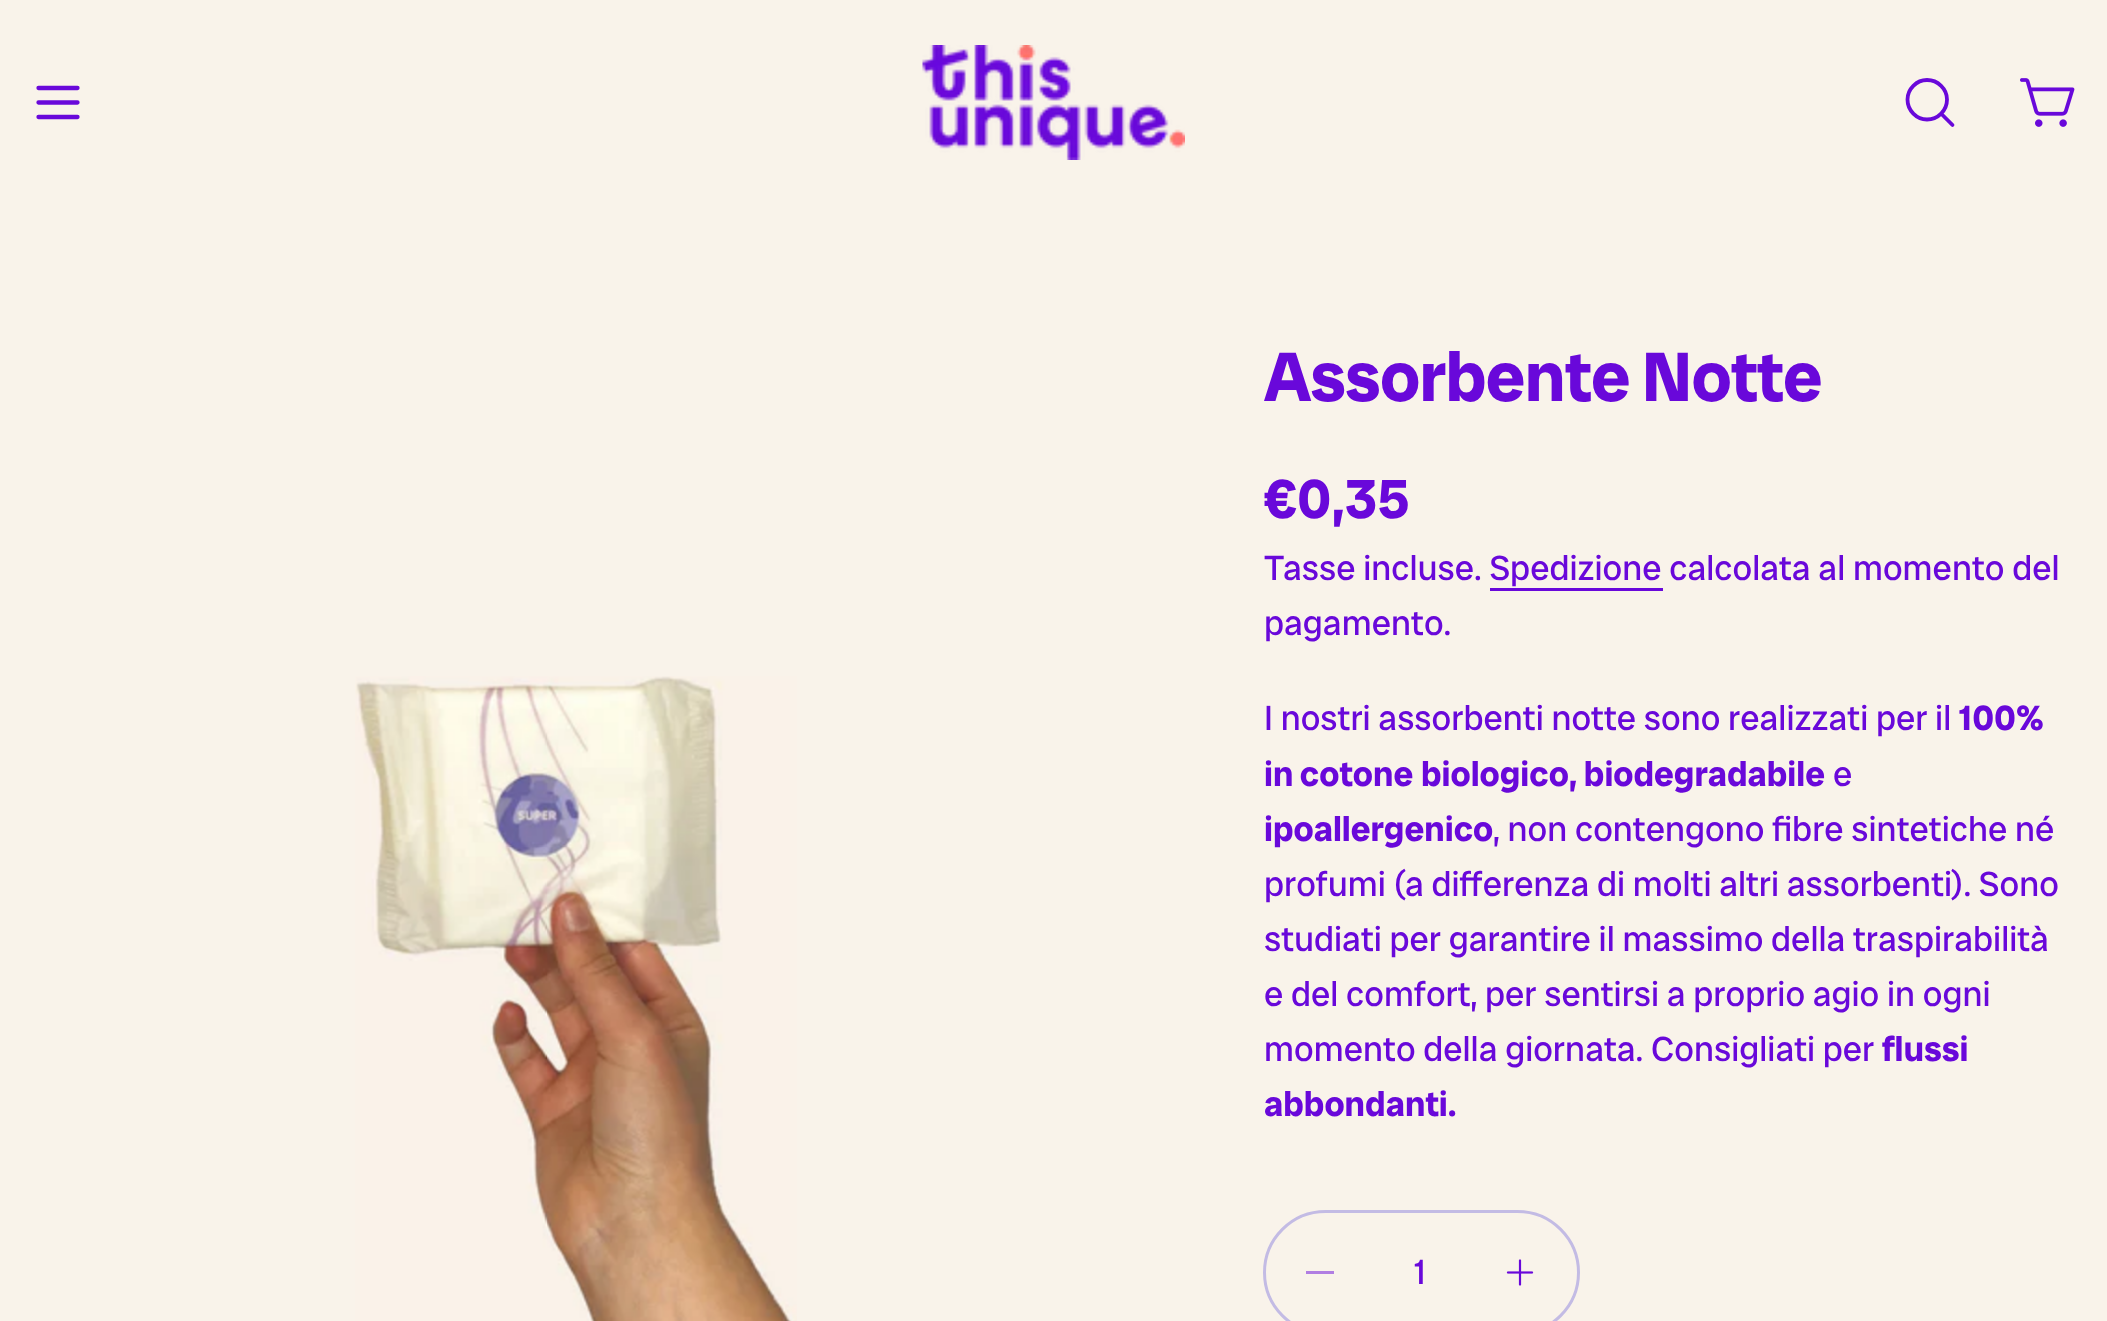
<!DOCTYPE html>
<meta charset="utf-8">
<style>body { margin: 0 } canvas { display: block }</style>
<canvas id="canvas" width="2107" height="1321"></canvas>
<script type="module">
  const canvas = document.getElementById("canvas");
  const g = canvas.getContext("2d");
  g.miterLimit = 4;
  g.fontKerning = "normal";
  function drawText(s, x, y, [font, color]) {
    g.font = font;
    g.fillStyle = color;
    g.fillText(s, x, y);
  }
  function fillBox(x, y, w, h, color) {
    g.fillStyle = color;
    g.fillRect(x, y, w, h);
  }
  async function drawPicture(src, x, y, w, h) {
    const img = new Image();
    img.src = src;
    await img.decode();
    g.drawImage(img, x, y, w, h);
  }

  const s1 = ["bold 70px Radio Canada Big", "#6908DA"];
  const s2 = ["bold 55px Radio Canada Big", "#6908DA"];
  const s3 = ["35px Radio Canada Big", "#6908DA"];
  const s4 = ["bold 35px Radio Canada Big", "#6908DA"];

  fillBox(0, 0, 2107, 1321, "#F9F3EA");
  g.beginPath();
  g.moveTo(38.5, 102.5);
  g.lineTo(77.5, 102.5);
  g.moveTo(38.5, 88);
  g.lineTo(77.5, 88);
  g.moveTo(38.5, 117);
  g.lineTo(77.5, 117);
  g.strokeStyle = "#6908DA";
  g.lineWidth = 4.3;
  g.lineCap = "round";
  g.lineJoin = "round";
  g.stroke();
  await drawPicture("pic1.png", 922, 45, 263, 115);
  g.beginPath();
  g.moveTo(1927, 119.5);
  g.bezierCurveTo(1938, 119.5, 1947, 110.5, 1947, 99.5);
  g.bezierCurveTo(1947, 89, 1938, 80, 1927, 80);
  g.bezierCurveTo(1916.5, 80, 1907.5, 89, 1907.5, 99.5);
  g.bezierCurveTo(1907.5, 110.5, 1916.5, 119.5, 1927, 119.5);
  g.closePath();
  g.moveTo(1941, 113.5);
  g.lineTo(1952.5, 125);
  g.lineWidth = 3.8;
  g.stroke();
  await drawPicture("pic2.png", 2020, 78, 55, 49);
  await drawPicture("pic3.png", 355, 676, 442, 645);
  g.letterSpacing = "-0.75px";
  drawText("Assorbente Notte", 1264, 401, s1);
  g.letterSpacing = "0px";
  drawText("€0,35", 1264, 518, s2);
  drawText("Tasse incluse. Spedizione calcolata al momento del", 1264, 580, s3);
  fillBox(1490, 588, 173, 3, "#6908DA");
  drawText("pagamento.", 1264, 635, s3);
  drawText("I nostri assorbenti notte sono realizzati per il", 1264, 730, s3);
  drawText("100%", 1959, 730, s4);
  drawText("in cotone", 1264, 786, s4);
  drawText("biologico, biodegradabile", 1421, 786, s4);
  drawText("e", 1833, 786, s3);
  drawText("ipoallergenico", 1264, 841, s4);
  drawText(", non contengono fibre sintetiche né", 1493, 841, s3);
  drawText("profumi (a differenza di molti altri assorbenti). Sono", 1264, 896, s3);
  drawText("studiati per garantire il massimo della traspirabilità", 1264, 951, s3);
  drawText("e del comfort, per sentirsi a proprio agio in ogni", 1264, 1006, s3);
  drawText("momento della giornata. Consigliati per", 1264, 1061, s3);
  drawText("flussi", 1882, 1061, s4);
  drawText("abbondanti.", 1264, 1116, s4);
  g.beginPath();
  g.roundRect(1264.5, 1211.5, 314, 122, 61);
  g.strokeStyle = "#C3BBE4";
  g.lineWidth = 3;
  g.lineJoin = "miter";
  g.stroke();
  fillBox(1306, 1271, 28, 3, "#B17EE2");
  drawText("1", 1414, 1284, s3);
  await drawPicture("pic4.png", 1506, 1259, 28, 27);
</script>
